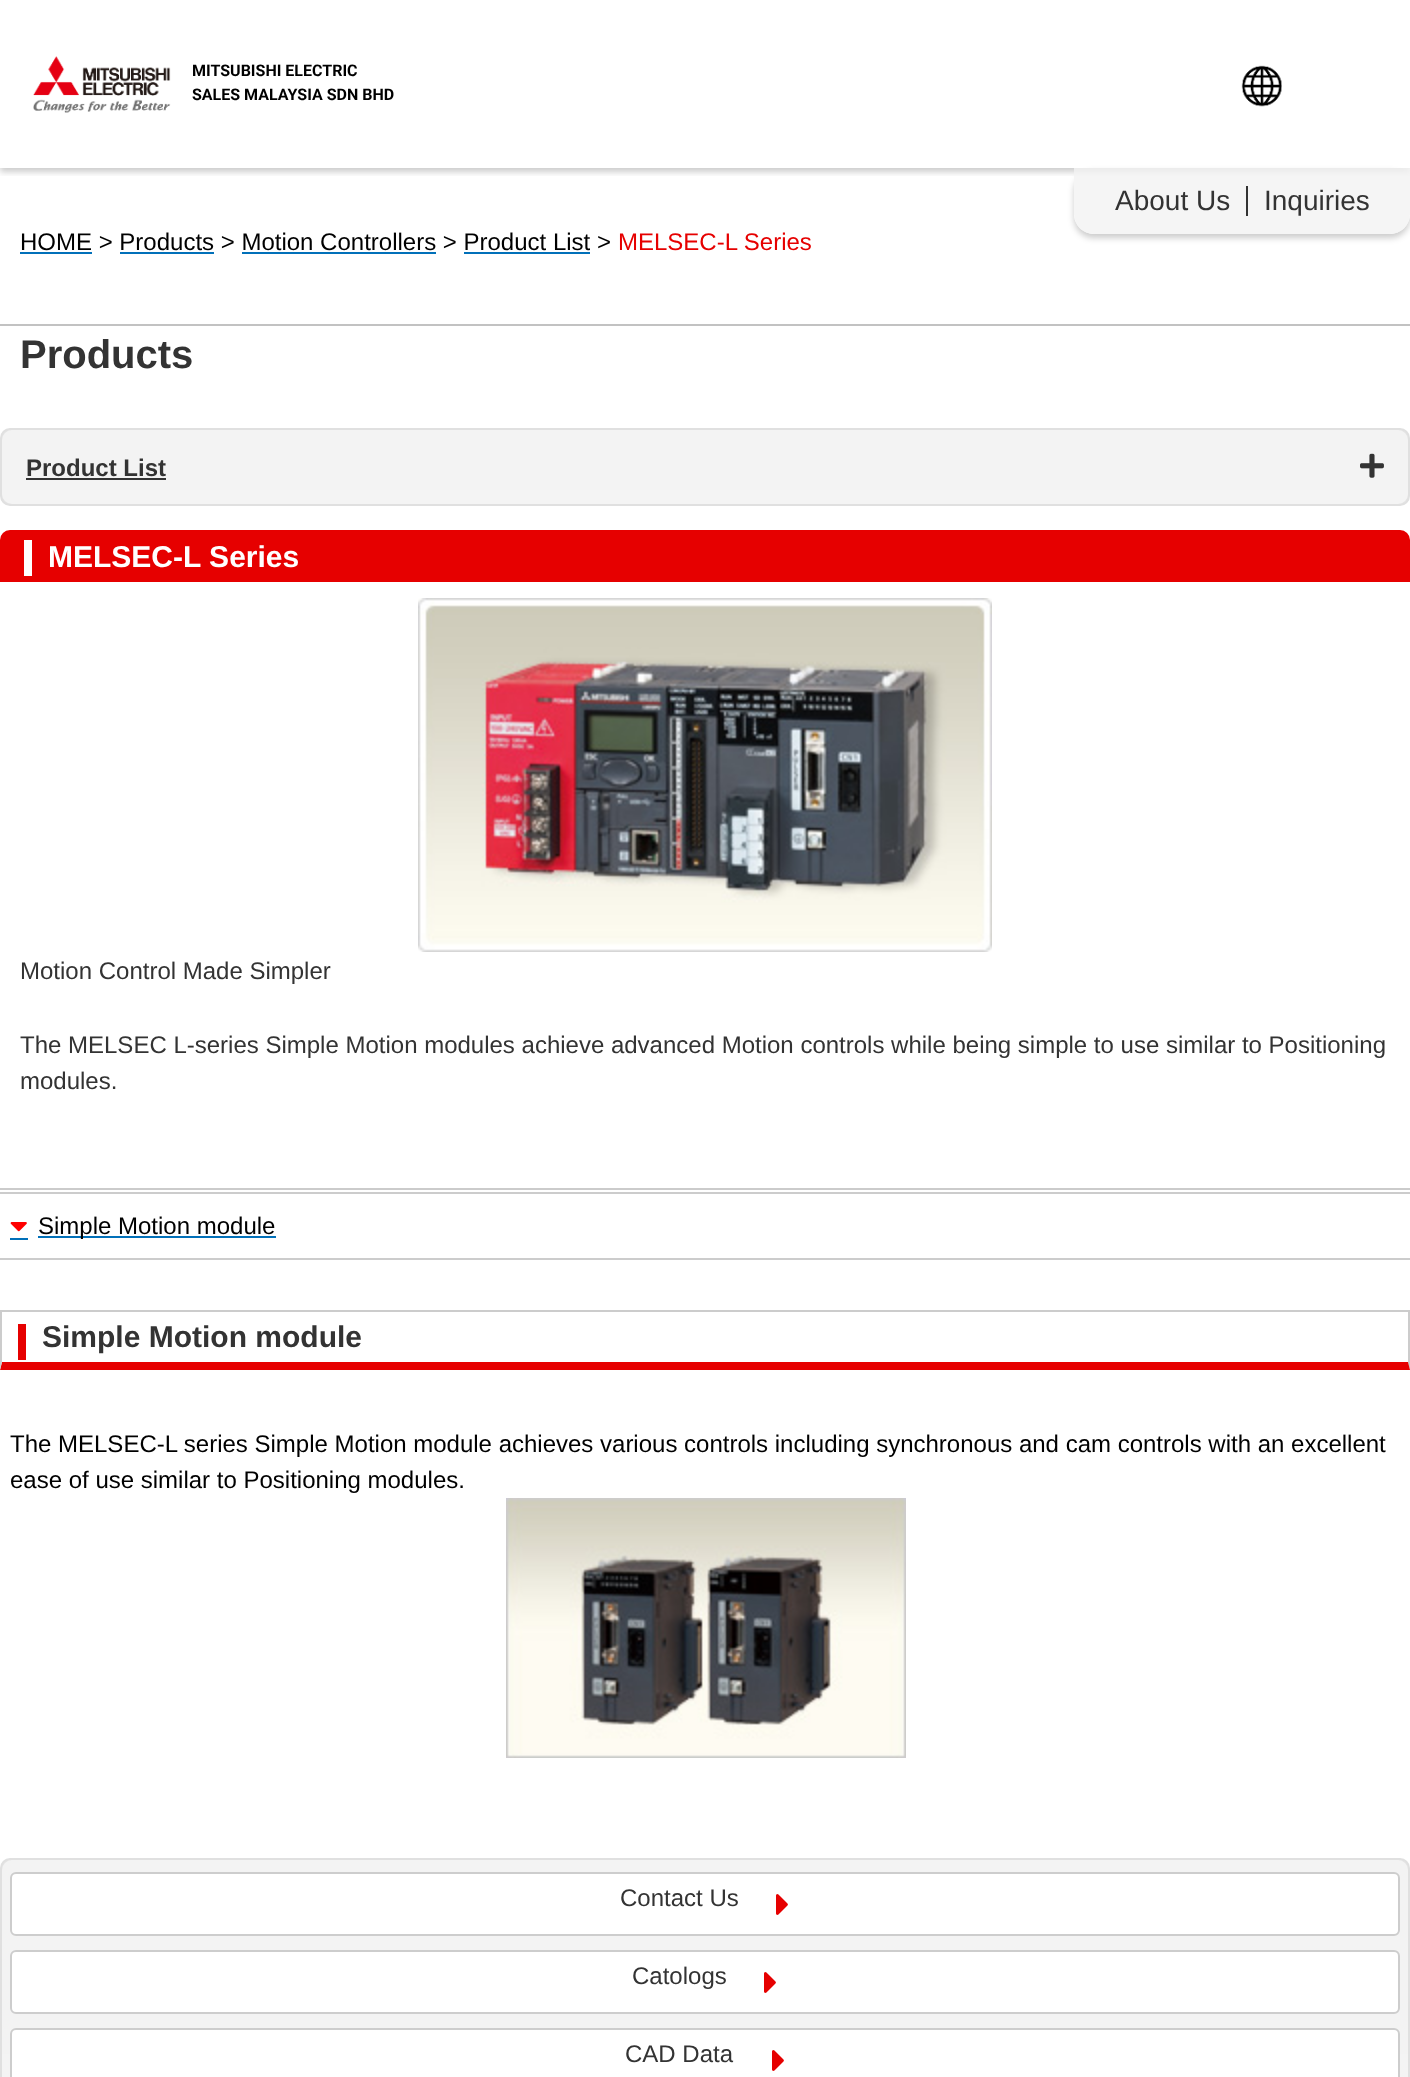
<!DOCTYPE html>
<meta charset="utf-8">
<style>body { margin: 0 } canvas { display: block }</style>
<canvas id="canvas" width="1410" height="2077"></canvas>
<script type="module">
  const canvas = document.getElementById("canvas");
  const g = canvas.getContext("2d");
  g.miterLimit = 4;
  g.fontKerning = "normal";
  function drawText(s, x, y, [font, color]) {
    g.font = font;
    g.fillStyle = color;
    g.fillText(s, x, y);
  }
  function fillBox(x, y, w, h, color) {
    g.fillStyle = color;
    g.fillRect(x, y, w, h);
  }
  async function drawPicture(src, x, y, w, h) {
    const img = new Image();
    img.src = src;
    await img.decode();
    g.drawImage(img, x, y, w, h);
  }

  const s1 = ["bold 16px Roboto", "#000000"];
  const s2 = ["28px Liberation Sans", "#333333"];
  const s3 = ["24px Liberation Sans", "#000000"];
  const s4 = ["24px Liberation Sans", "#E60000"];
  const s5 = ["bold 40px Liberation Sans", "#333333"];
  const s6 = ["bold 24px Liberation Sans", "#333333"];
  const s7 = ["bold 30px Liberation Sans", "#FFFFFF"];
  const s8 = ["24px Liberation Sans", "#333333"];
  const s9 = ["bold 30px Liberation Sans", "#333333"];

  fillBox(0, 0, 1410, 2077, "#FFFFFF");
  g.save();
  g.beginPath();
  g.rect(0, 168, 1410, 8);
  g.clip();
  g.fillStyle = "rgba(0, 0, 0, 0.2)";
  g.filter = "blur(3px)";
  g.beginPath();
  g.rect(0, 4, 1410, 168);
  g.fill();
  g.filter = "none";
  g.restore();
  await drawPicture("pic1.png", 33, 56, 138, 57);
  drawText("MITSUBISHI ELECTRIC", 192, 76, s1);
  drawText("SALES MALAYSIA SDN BHD", 192, 100, s1);
  await drawPicture("pic2.png", 1241, 65, 41, 42);
  g.save();
  g.beginPath();
  g.moveTo(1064, 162);
  g.lineTo(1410, 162);
  g.lineTo(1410, 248);
  g.lineTo(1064, 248);
  g.closePath();
  g.moveTo(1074, 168);
  g.lineTo(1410, 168);
  g.lineTo(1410, 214);
  g.bezierCurveTo(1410, 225, 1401, 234, 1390, 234);
  g.lineTo(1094, 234);
  g.bezierCurveTo(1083, 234, 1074, 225, 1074, 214);
  g.closePath();
  g.clip("evenodd");
  g.fillStyle = "rgba(0, 0, 0, 0.2)";
  g.filter = "blur(3px)";
  g.beginPath();
  g.roundRect(1074, 172, 336, 66, 20);
  g.fill();
  g.filter = "none";
  g.restore();
  g.fillStyle = "rgba(242, 242, 242, 0.8)";
  g.beginPath();
  g.roundRect(1074, 168, 336, 66, [0, 0, 20, 20]);
  g.fill();
  drawText("About Us", 1115, 210, s2);
  fillBox(1246, 186, 2, 30, "#333333");
  drawText("Inquiries", 1264, 210, s2);
  drawText("HOME > Products > Motion Controllers > Product List >", 20, 250, s3);
  fillBox(20, 252, 72, 2, "#0170B9");
  drawText("MELSEC-L Series", 618, 250, s4);
  fillBox(120, 252, 94, 2, "#0170B9");
  fillBox(242, 252, 194, 2, "#0170B9");
  fillBox(464, 252, 126, 2, "#0170B9");
  fillBox(0, 324, 1410, 2, "#C2C2C2");
  drawText("Products", 20, 368, s5);
  g.fillStyle = "#E4E4E4";
  g.beginPath();
  g.roundRect(1, 429, 1408, 76, 9);
  g.fill();
  g.strokeStyle = "#E0E0E0";
  g.lineWidth = 2;
  g.stroke();
  g.fillStyle = "#F3F3F3";
  g.beginPath();
  g.roundRect(2, 430, 1406, 60, [10, 10, 0, 0]);
  g.fill();
  g.fillStyle = "#F4F4F4";
  g.beginPath();
  g.roundRect(2, 490, 1406, 14, [0, 0, 10, 10]);
  g.fill();
  drawText("Product List", 26, 476, s6);
  fillBox(26, 478, 140, 2, "#333333");
  await drawPicture("pic3.png", 1360, 453, 24, 25);
  g.fillStyle = "#E60000";
  g.beginPath();
  g.roundRect(1, 531, 1408, 50, [9, 9, 0, 0]);
  g.fill();
  g.strokeStyle = "#E60000";
  g.stroke();
  fillBox(24, 540, 8, 36, "#FFFFFF");
  drawText("MELSEC-L Series", 48, 567, s7);
  await drawPicture("pic4.png", 418, 598, 574, 354);
  drawText("Motion Control Made Simpler", 20, 979, s8);
  drawText("The MELSEC L-series Simple Motion modules achieve advanced Motion controls while being simple to use similar to Positioning", 20, 1053, s8);
  drawText("modules.", 20, 1089, s8);
  fillBox(0, 1188, 1410, 2, "#CBCBCB");
  fillBox(0, 1192, 1410, 2, "#CCCCCC");
  fillBox(0, 1258, 1410, 2, "#CCCCCC");
  await drawPicture("pic5.png", 10, 1222, 17, 10);
  fillBox(10, 1238, 18, 2, "#0170B9");
  fillBox(38, 1236, 238, 2, "#0170B9");
  drawText("Simple Motion module", 38, 1234, s3);
  fillBox(0, 1310, 1410, 2, "#CCCCCC");
  g.beginPath();
  g.moveTo(1410, 1310);
  g.lineTo(1410, 1370);
  g.lineTo(1408, 1362);
  g.lineTo(1408, 1312);
  g.closePath();
  g.fill();
  g.fillStyle = "#E60000";
  g.beginPath();
  g.moveTo(1410, 1370);
  g.lineTo(0, 1370);
  g.lineTo(2, 1362);
  g.lineTo(1408, 1362);
  g.closePath();
  g.fill();
  g.fillStyle = "#CCCCCC";
  g.beginPath();
  g.moveTo(0, 1370);
  g.lineTo(0, 1310);
  g.lineTo(2, 1312);
  g.lineTo(2, 1362);
  g.closePath();
  g.fill();
  fillBox(18, 1324, 8, 36, "#E60000");
  drawText("Simple Motion module", 42, 1347, s9);
  drawText("The MELSEC-L series Simple Motion module achieves various controls including synchronous and cam controls with an excellent", 10, 1452, s3);
  drawText("ease of use similar to Positioning modules.", 10, 1488, s3);
  await drawPicture("pic6.png", 506, 1498, 400, 260);
  g.fillStyle = "#E4E4E4";
  g.beginPath();
  g.roundRect(1, 1859, 1408, 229, 9);
  g.fill();
  g.strokeStyle = "#E0E0E0";
  g.stroke();
  g.fillStyle = "#F3F3F3";
  g.beginPath();
  g.roundRect(2, 1860, 1406, 194, [10, 10, 0, 0]);
  g.fill();
  fillBox(2, 2054, 1406, 23, "#F4F4F4");
  g.fillStyle = "#FFFFFF";
  g.beginPath();
  g.roundRect(11, 1873, 1388, 62, 5);
  g.fill();
  g.strokeStyle = "#CDCDCD";
  g.stroke();
  drawText("Contact Us", 620, 1906, s8);
  await drawPicture("pic7.png", 776, 1894, 12, 21);
  g.fillStyle = "#FFFFFF";
  g.beginPath();
  g.roundRect(11, 1951, 1388, 62, 5);
  g.fill();
  g.stroke();
  drawText("Catologs", 632, 1984, s8);
  await drawPicture("pic7.png", 764, 1972, 12, 21);
  g.fillStyle = "#FFFFFF";
  g.beginPath();
  g.roundRect(11, 2029, 1388, 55, 5);
  g.fill();
  g.stroke();
  drawText("CAD Data", 625, 2062, s8);
  await drawPicture("pic7.png", 772, 2050, 12, 21);
</script>
